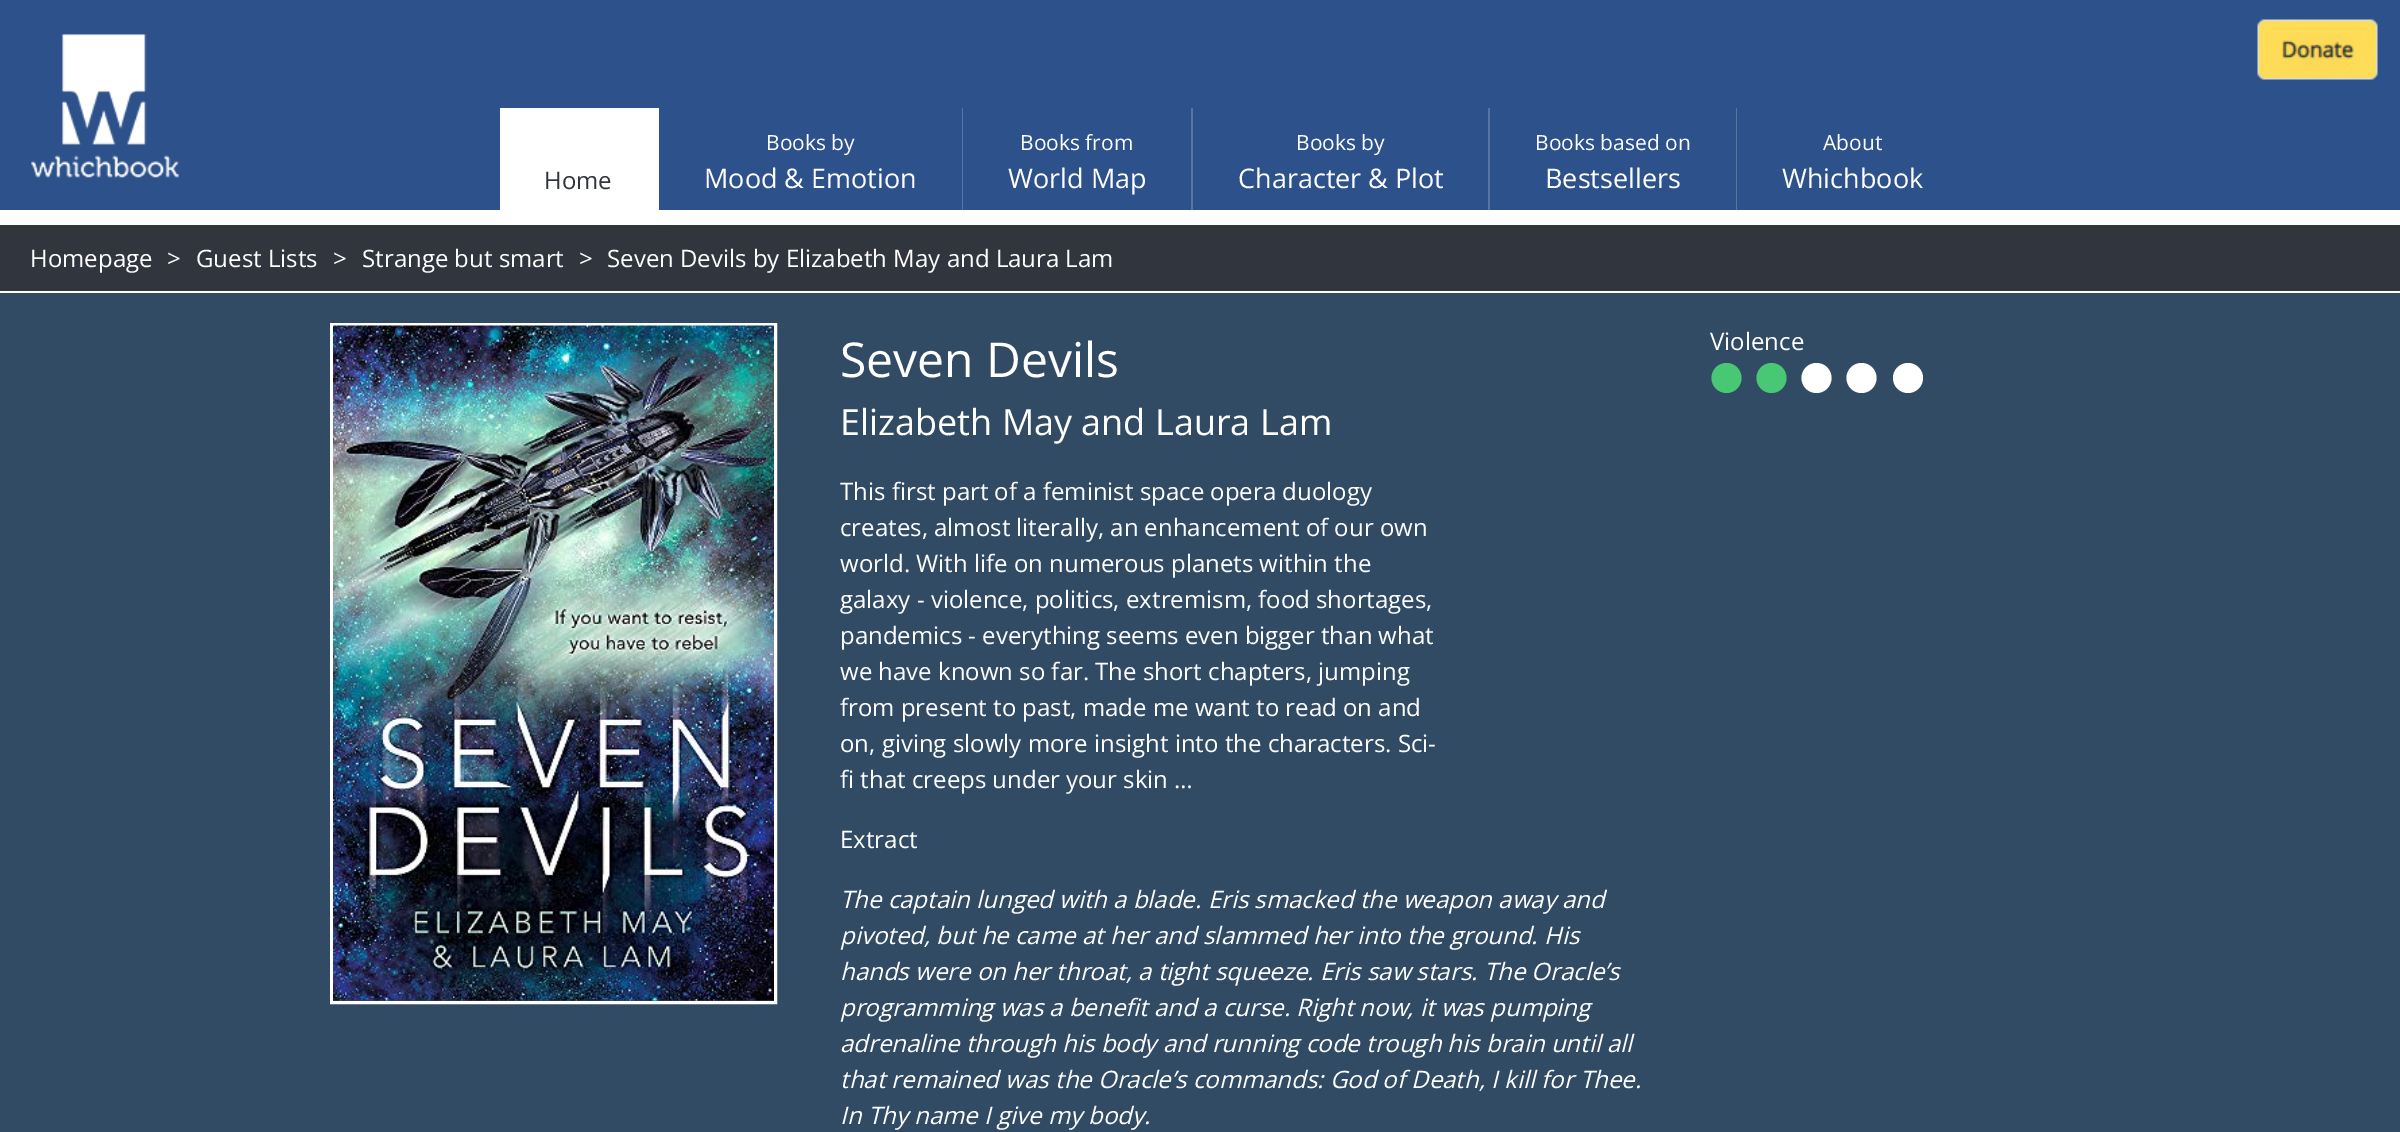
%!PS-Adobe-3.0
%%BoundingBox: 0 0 2400 1132
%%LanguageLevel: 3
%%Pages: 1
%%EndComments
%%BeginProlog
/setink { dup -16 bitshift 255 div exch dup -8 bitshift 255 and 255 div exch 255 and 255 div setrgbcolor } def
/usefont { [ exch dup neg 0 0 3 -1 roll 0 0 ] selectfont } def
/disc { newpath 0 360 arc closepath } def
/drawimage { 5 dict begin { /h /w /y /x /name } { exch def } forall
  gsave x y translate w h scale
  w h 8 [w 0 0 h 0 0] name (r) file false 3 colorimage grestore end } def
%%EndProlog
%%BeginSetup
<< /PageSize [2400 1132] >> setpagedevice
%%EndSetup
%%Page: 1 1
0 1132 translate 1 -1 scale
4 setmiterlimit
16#31353D setink
0 0 2400 1132 rectfill
16#2D518B setink
0 0 2400 210 rectfill
16#FFFFFF setink
0 210 2400 15 rectfill
(img1.raw) 31 34 148 144 drawimage
500 108 159 102 rectfill
/OpenSans-Regular 24 usefont
16#31353D setink
544 189 moveto (Home) show
16#5774A2 setink
962 108 1 102 rectfill
/OpenSans-Regular 21 usefont
16#FFFFFF setink
766 150 moveto (Books by) show
/OpenSans-Regular 27 usefont
704 188 moveto (Mood & Emotion) show
16#5774A2 setink
1191 108 2 102 rectfill
/OpenSans-Regular 21 usefont
16#FFFFFF setink
1020 150 moveto (Books from) show
/OpenSans-Regular 27 usefont
1008 188 moveto (World Map) show
16#5774A2 setink
1488 108 2 102 rectfill
/OpenSans-Regular 21 usefont
16#FFFFFF setink
1296 150 moveto (Books by) show
/OpenSans-Regular 27 usefont
1238 188 moveto (Character & Plot) show
16#5774A2 setink
1736 108 1 102 rectfill
/OpenSans-Regular 21 usefont
16#FFFFFF setink
1535 150 moveto (Books based on) show
/OpenSans-Regular 27 usefont
1545 188 moveto (Bestsellers) show
/OpenSans-Regular 21 usefont
1823 150 moveto (About) show
/OpenSans-Regular 27 usefont
1782 188 moveto (Whichbook) show
(img2.raw) 2257 19 121 61 drawimage
0 291 2400 2 rectfill
/OpenSans-Regular 24 usefont
[
    [(Homepage) 30 267]
    [(>) 167 267]
    [(Guest Lists) 196 267]
    [(>) 333 267]
    [(Strange but smart) 362 267]
    [(>) 579 267]
    [(Seven Devils by Elizabeth May and Laura Lam) 607 267]
] { aload pop moveto show } forall
16#324B64 setink
0 293 2400 839 rectfill
16#FFFFFF setink
3 setlinewidth
331.5 324.5 444 678 rectstroke
(img3.raw) 333 325 441 676 drawimage
/OpenSans-Regular 48 usefont
840 377 moveto (Seven Devils) show
/OpenSans-Regular 36 usefont
840 435 moveto (Elizabeth May and Laura Lam) show
/OpenSans-Regular 24 usefont
[
    [(This first part of a feminist space opera duology) 840 500]
    [(creates, almost literally, an enhancement of our own) 840 536]
    [(world. With life on numerous planets within the) 840 572]
    [(galaxy - violence, politics, extremism, food shortages,) 840 608]
    [(pandemics - everything seems even bigger than what) 840 644]
    [(we have known so far. The short chapters, jumping) 840 680]
    [(from present to past, made me want to read on and) 840 716]
    [(on, giving slowly more insight into the characters. Sci-) 840 752]
    [(fi that creeps under your skin …) 840 788]
    [(Extract) 840 848]
] { aload pop moveto show } forall
/OpenSans-Italic 24 usefont
[
    [(The captain lunged with a blade. Eris smacked the weapon away and) 840 908]
    [(pivoted, but he came at her and slammed her into the ground. His) 840 944]
    [(hands were on her throat, a tight squeeze. Eris saw stars. The Oracle’s) 840 980]
    [(programming was a benefit and a curse. Right now, it was pumping) 840 1016]
    [(adrenaline through his body and running code trough his brain until all) 840 1052]
    [(that remained was the Oracle’s commands: God of Death, I kill for Thee.) 840 1088]
    [(In Thy name I give my body.) 840 1124]
] { aload pop moveto show } forall
/OpenSans-Regular 24 usefont
1710 350 moveto (Violence) show
16#48C774 setink
1726.5 378 15 disc fill
1771.5 378 15 disc fill
16#FFFFFF setink
1816.5 378 15 disc fill
1861.5 378 15 disc fill
1908 378 15 disc fill
showpage
%%EOF
